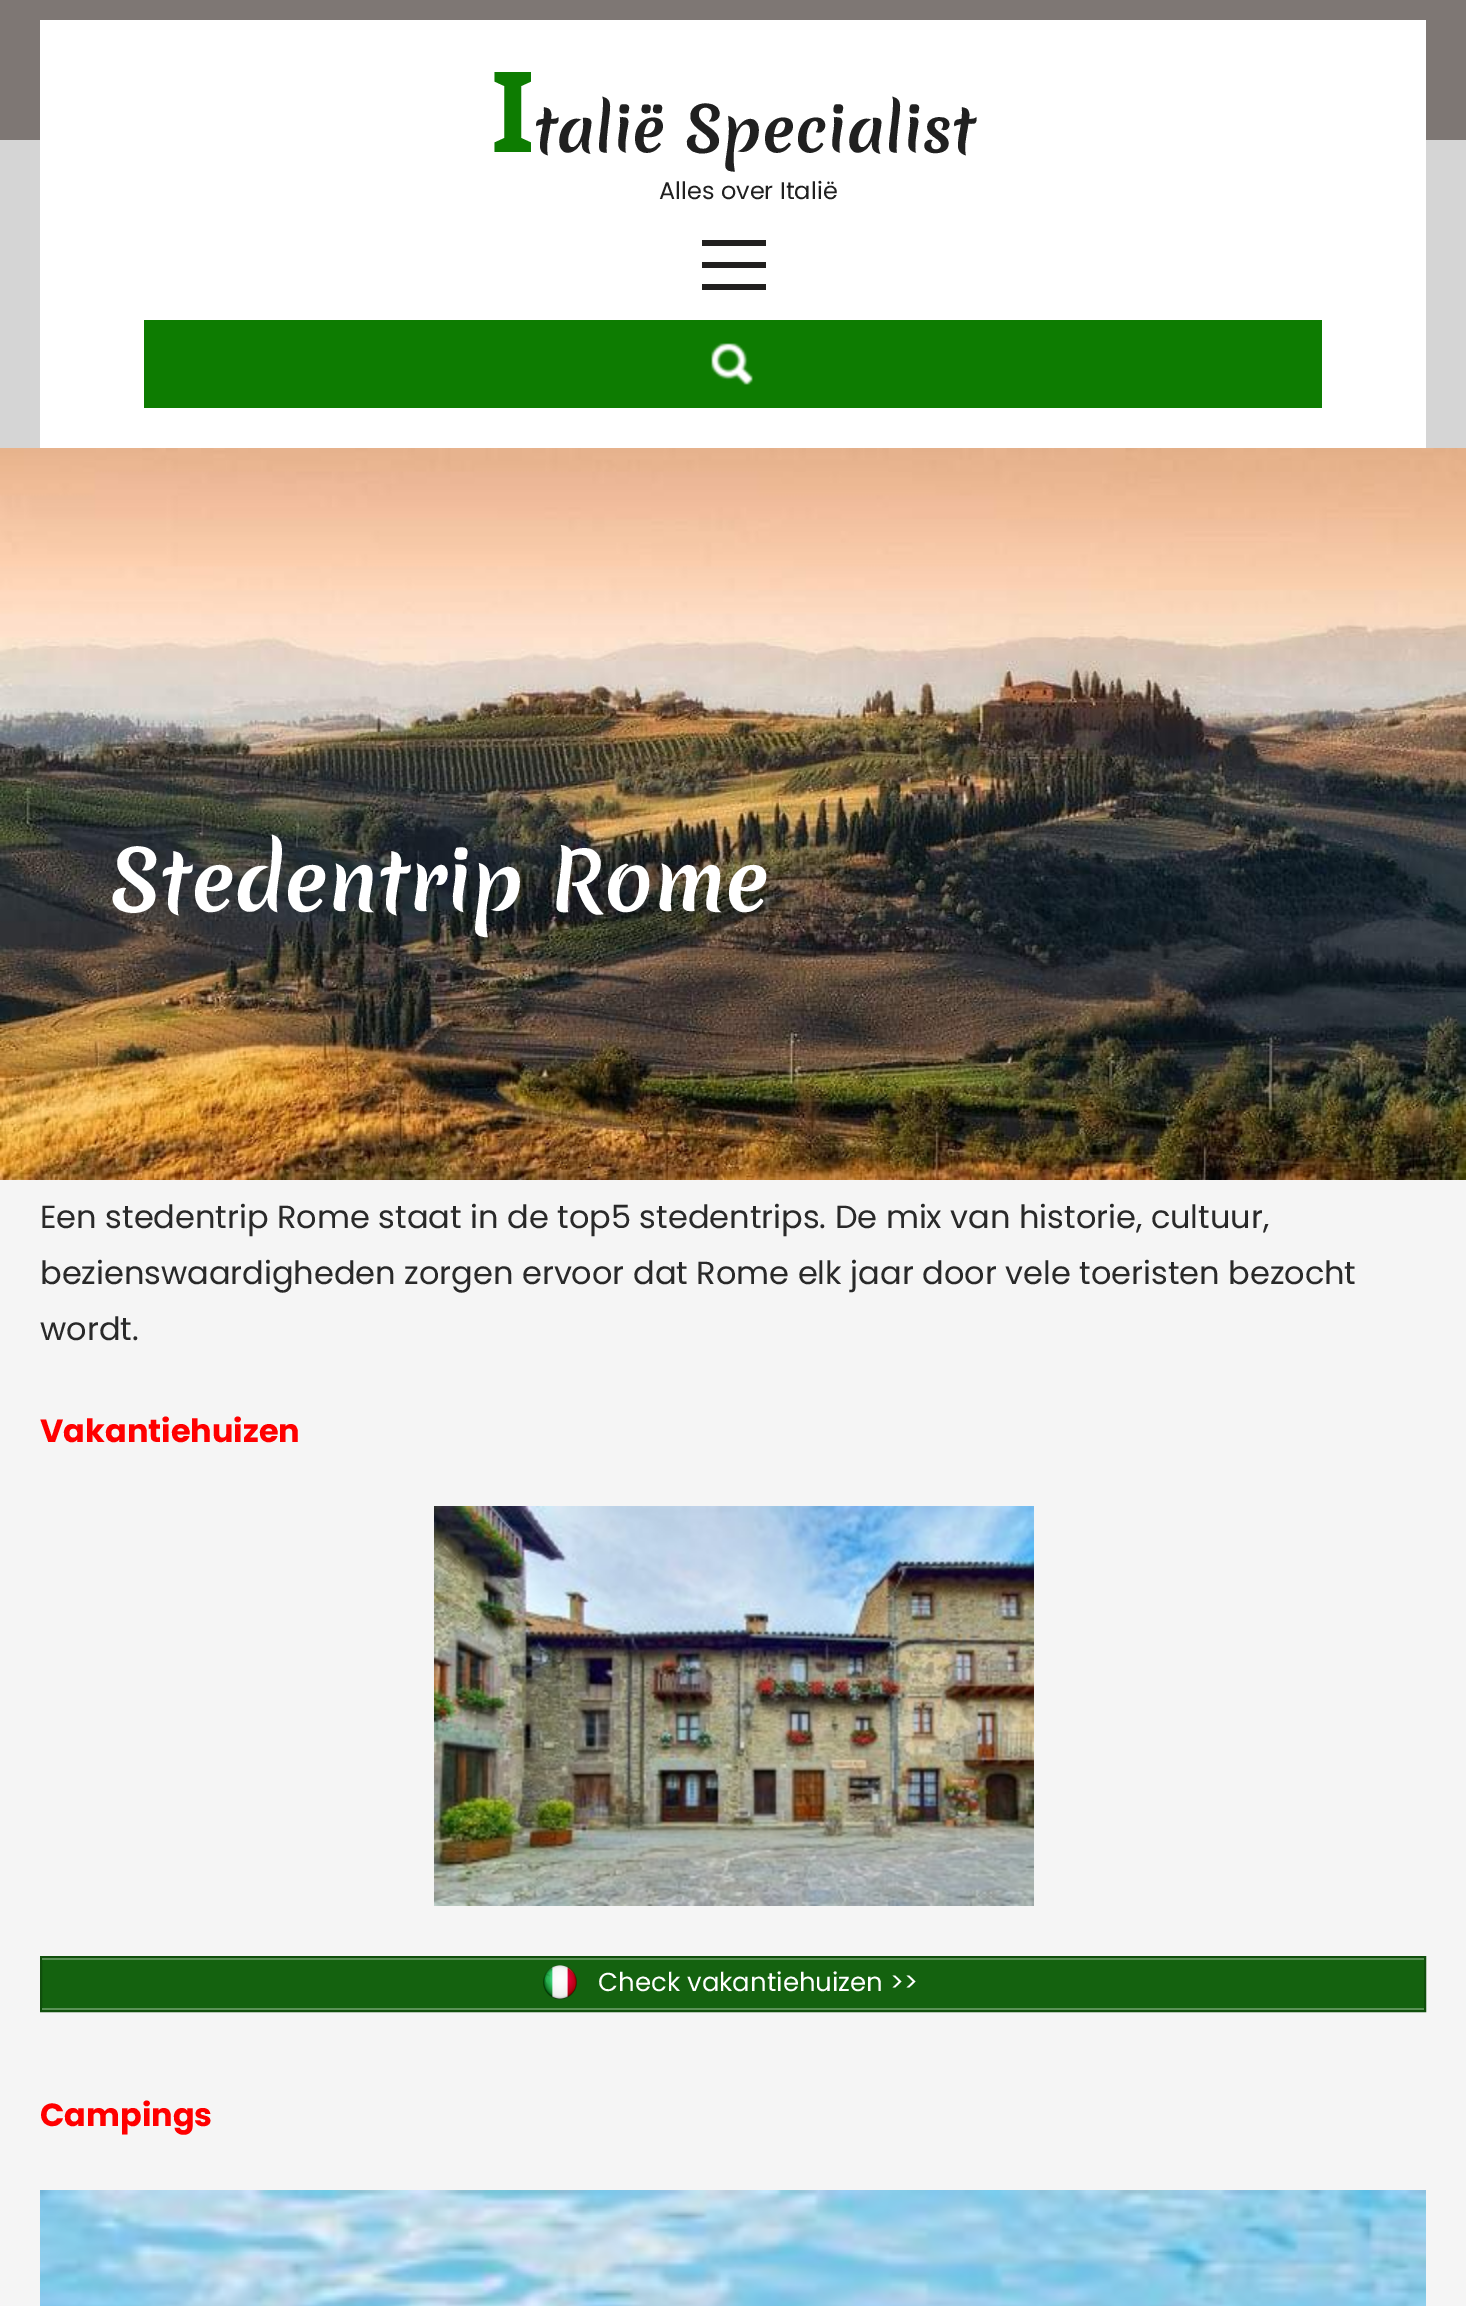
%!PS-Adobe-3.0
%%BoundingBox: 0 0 1466 2306
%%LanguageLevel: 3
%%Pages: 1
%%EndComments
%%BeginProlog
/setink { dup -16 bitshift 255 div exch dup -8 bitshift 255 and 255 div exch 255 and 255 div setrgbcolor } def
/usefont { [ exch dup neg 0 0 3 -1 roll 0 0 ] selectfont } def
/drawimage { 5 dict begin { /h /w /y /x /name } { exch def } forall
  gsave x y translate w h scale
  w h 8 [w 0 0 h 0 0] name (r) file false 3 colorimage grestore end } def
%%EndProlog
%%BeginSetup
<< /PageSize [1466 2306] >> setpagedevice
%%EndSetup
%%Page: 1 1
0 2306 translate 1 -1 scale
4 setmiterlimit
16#F5F5F5 setink
0 0 1466 2306 rectfill
[
    [0 0 1466 140 16#7E7774]
    [0 140 1466 308 16#D5D5D5]
    [40 20 1386 428 16#FFFFFF]
] { aload pop setink rectfill } forall
/NotoSans-Bold 112 usefont
16#0D7C01 setink
491 152 moveto (I) show
/Merienda-Bold 60 usefont
16#202020 setink
534 152 moveto (talië Specialist) show
/Poppins-Regular 24 usefont
659 199 moveto (Alles over Italië) show
[
    [702 240 64 6 16#21201F]
    [702 262 64 6 16#21201F]
    [702 284 64 6 16#21201F]
    [144 320 1178 88 16#0D7C01]
] { aload pop setink rectfill } forall
(img1.raw) 711 343 42 42 drawimage
(img2.raw) 0 448 1466 732 drawimage
/Merienda-Bold 80 usefont
16#FFFFFF setink
110 911 moveto (Stedentrip Rome) show
/Poppins-Regular 32 usefont
16#292929 setink
[
    [(Een stedentrip Rome staat in de top5 stedentrips. De mix van historie, cultuur,) 40 1228]
    [(bezienswaardigheden zorgen ervoor dat Rome elk jaar door vele toeristen bezocht) 40 1284]
    [(wordt.) 40 1340]
] { aload pop moveto show } forall
/Poppins-Bold 32 usefont
16#FF0000 setink
40 1442 moveto (Vakantiehuizen) show
(img3.raw) 434 1506 600 400 drawimage
16#14620F setink
42 1960 1382 48 rectfill
16#104F0C setink
2 setlinewidth
41 1957 1384 54 rectstroke
16#5B9257 setink
42 1958 1382 2 rectfill
42 2008 1382 2 rectfill
(img4.raw) 543 1965 34 35 drawimage
/Poppins-Regular 26 usefont
16#FFFFFF setink
598 1991 moveto (Check vakantiehuizen >>) show
/Poppins-Bold 32 usefont
16#FF0000 setink
40 2126 moveto (Campings) show
(img5.raw) 40 2190 1386 116 drawimage
showpage
%%EOF
